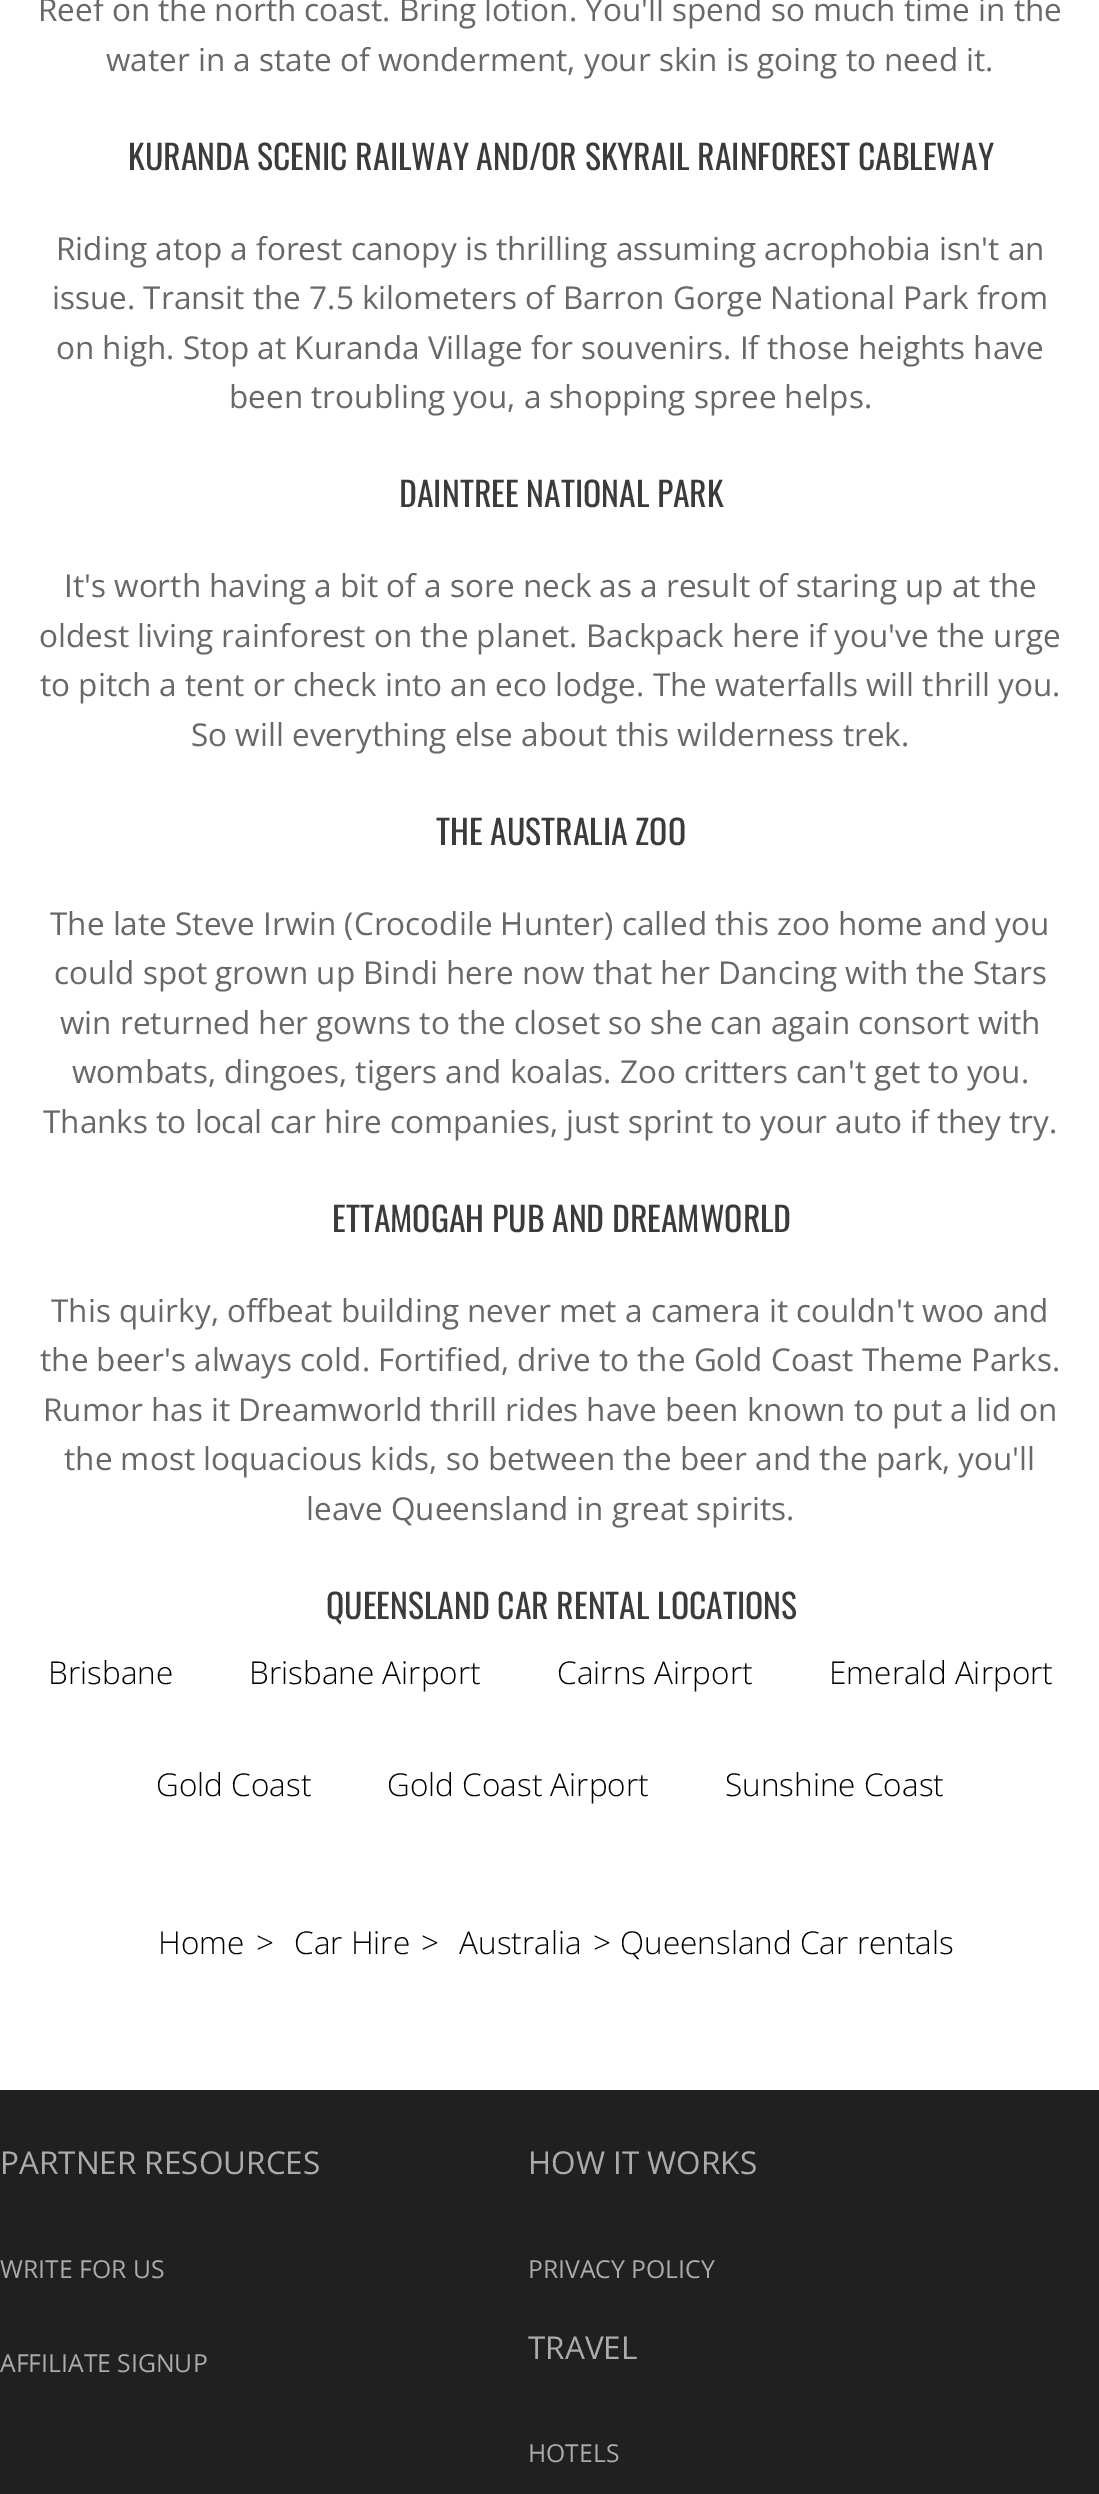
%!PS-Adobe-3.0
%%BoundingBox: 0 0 1099 2494
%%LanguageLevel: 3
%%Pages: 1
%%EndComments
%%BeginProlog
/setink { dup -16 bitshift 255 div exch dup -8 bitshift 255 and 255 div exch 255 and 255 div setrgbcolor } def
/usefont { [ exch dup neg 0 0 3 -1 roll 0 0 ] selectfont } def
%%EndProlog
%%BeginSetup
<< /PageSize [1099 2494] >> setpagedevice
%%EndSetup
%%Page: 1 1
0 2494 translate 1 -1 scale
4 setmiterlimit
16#FFFFFF setink
0 0 1099 2494 rectfill
/OpenSans-Regular 31.5 usefont
16#676968 setink
38 21 moveto (Reef on the north coast. Bring lotion. You'll spend so much time in the) show
106 71 moveto (water in a state of wonderment, your skin is going to need it.) show
/Oswald-Regular 33.75 usefont
16#3A3B3B setink
128 170 moveto (KURANDA SCENIC RAILWAY AND/OR SKYRAIL RAINFOREST CABLEWAY) show
/OpenSans-Regular 31.5 usefont
16#676968 setink
[
    [(Riding atop a forest canopy is thrilling assuming acrophobia isn't an) 56 260]
    [(issue. Transit the 7.5 kilometers of Barron Gorge National Park from) 52 309]
    [(on high. Stop at Kuranda Village for souvenirs. If those heights have) 56 359]
    [(been troubling you, a shopping spree helps.) 229 408]
] { aload pop moveto show } forall
/Oswald-Regular 33.75 usefont
16#3A3B3B setink
399 507 moveto (DAINTREE NATIONAL PARK) show
/OpenSans-Regular 31.5 usefont
16#676968 setink
[
    [(It's worth having a bit of a sore neck as a result of staring up at the) 64 597]
    [(oldest living rainforest on the planet. Backpack here if you've the urge) 39 647]
    [(to pitch a tent or check into an eco lodge. The waterfalls will thrill you.) 40 696]
    [(So will everything else about this wilderness trek.) 191 746]
] { aload pop moveto show } forall
/Oswald-Regular 33.75 usefont
16#3A3B3B setink
436 845 moveto (THE AUSTRALIA ZOO) show
/OpenSans-Regular 31.5 usefont
16#676968 setink
[
    [(The late Steve Irwin \(Crocodile Hunter\) called this zoo home and you) 50 935]
    [(could spot grown up Bindi here now that her Dancing with the Stars) 54 984]
    [(win returned her gowns to the closet so she can again consort with) 60 1034]
    [(wombats, dingoes, tigers and koalas. Zoo critters can't get to you.) 72 1083]
    [(Thanks to local car hire companies, just sprint to your auto if they try.) 43 1133]
] { aload pop moveto show } forall
/Oswald-Regular 33.75 usefont
16#3A3B3B setink
332 1232 moveto (ETTAMOGAH PUB AND DREAMWORLD) show
/OpenSans-Regular 31.5 usefont
16#676968 setink
[
    [(This quirky, offbeat building never met a camera it couldn't woo and) 51 1322]
    [(the beer's always cold. Fortified, drive to the Gold Coast Theme Parks.) 40 1371]
    [(Rumor has it Dreamworld thrill rides have been known to put a lid on) 43 1421]
    [(the most loquacious kids, so between the beer and the park, you'll) 64 1470]
    [(leave Queensland in great spirits.) 306 1520]
] { aload pop moveto show } forall
/Oswald-Regular 33.75 usefont
16#3A3B3B setink
326 1619 moveto (QUEENSLAND CAR RENTAL LOCATIONS) show
/OpenSans-Light 31.5 usefont
16#000000 setink
[
    [(Brisbane) 48 1684]
    [(Brisbane Airport) 249 1684]
    [(Cairns Airport) 557 1684]
    [(Emerald Airport) 829 1684]
    [(Gold Coast) 156 1796]
    [(Gold Coast Airport) 387 1796]
    [(Sunshine Coast) 725 1796]
    [(Home) 158 1954]
    [(>) 256 1954]
    [(Car Hire) 294 1954]
    [(>) 421 1954]
    [(Australia) 459 1954]
    [(>) 593 1954]
    [(Queensland Car rentals) 620 1954]
] { aload pop moveto show } forall
16#202020 setink
0 2090 1099 404 rectfill
/OpenSans-Regular 31.5 usefont
16#ABABAB setink
0 2174 moveto (PARTNER RESOURCES) show
/OpenSans-Regular 24.75 usefont
0 2278 moveto (WRITE FOR US) show
0 2372 moveto (AFFILIATE SIGNUP) show
/OpenSans-Regular 31.5 usefont
528 2174 moveto (HOW IT WORKS) show
/OpenSans-Regular 24.75 usefont
528 2278 moveto (PRIVACY POLICY) show
/OpenSans-Regular 31.5 usefont
528 2359 moveto (TRAVEL) show
/OpenSans-Regular 24.75 usefont
528 2462 moveto (HOTELS) show
showpage
%%EOF
